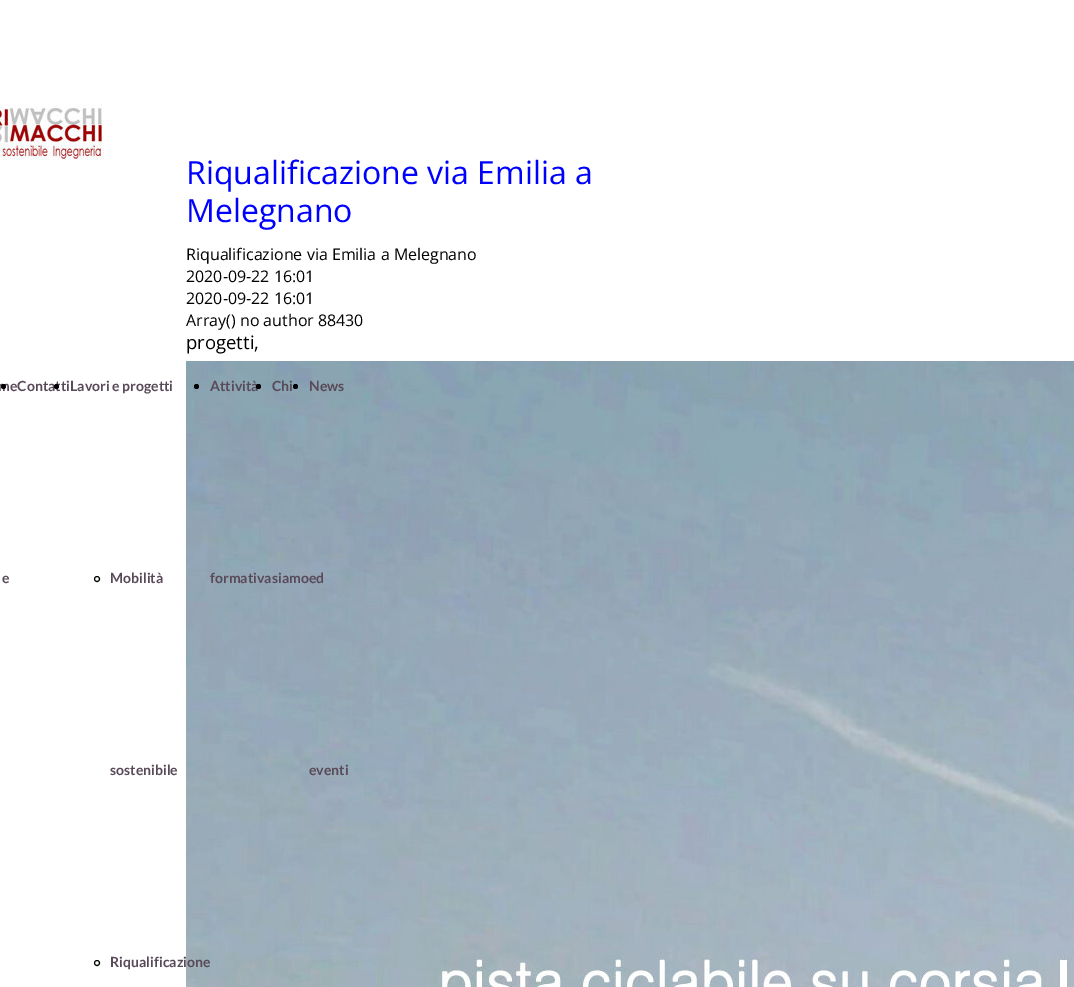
%!PS-Adobe-3.0
%%BoundingBox: 0 0 1074 987
%%LanguageLevel: 3
%%Pages: 1
%%EndComments
%%BeginProlog
/setink { dup -16 bitshift 255 div exch dup -8 bitshift 255 and 255 div exch 255 and 255 div setrgbcolor } def
/usefont { [ exch dup neg 0 0 3 -1 roll 0 0 ] selectfont } def
/disc { newpath 0 360 arc closepath } def
/drawimage { 5 dict begin { /h /w /y /x /name } { exch def } forall
  gsave x y translate w h scale
  w h 8 [w 0 0 h 0 0] name (r) file false 3 colorimage grestore end } def
%%EndProlog
%%BeginSetup
<< /PageSize [1074 987] >> setpagedevice
%%EndSetup
%%Page: 1 1
0 987 translate 1 -1 scale
4 setmiterlimit
16#FFFFFF setink
0 0 1074 987 rectfill
(img1.raw) 0 104 104 56 drawimage
/OpenSans-Regular 32 usefont
16#0000FF setink
186 184 moveto (Riqualificazione via Emilia a) show
186 222 moveto (Melegnano) show
/OpenSans-Regular 16 usefont
16#000000 setink
[
    [(Riqualificazione via Emilia a Melegnano) 186 260]
    [(2020-09-22 16:01) 186 282]
    [(2020-09-22 16:01) 186 304]
    [(Array\(\) no author 88430) 186 326]
] { aload pop moveto show } forall
/OpenSans-Regular 18.5 usefont
186 349 moveto (progetti,) show
(img2.raw) 186 361 888 626 drawimage
/Lato-Bold 14 usefont
16#584A58 setink
-2 391 moveto (meContattiLavori e progetti) show
2 583 moveto (e) show
16#000000 setink
196.5 386.5 2.5 disc fill
16#584A58 setink
210 391 moveto (Attività) show
210 583 moveto (formativasiamoed) show
16#000000 setink
3.5 386.5 2.5 disc fill
258.5 386.5 2.5 disc fill
16#584A58 setink
272 391 moveto (Chi) show
16#000000 setink
295.5 386.5 2.5 disc fill
16#584A58 setink
309 391 moveto (News) show
309 775 moveto (eventi) show
16#000000 setink
56.5 386.5 2.5 disc fill
97 579 2.5 disc stroke
16#584A58 setink
110 583 moveto (Mobilità) show
110 775 moveto (sostenibile) show
16#000000 setink
97 963 2.5 disc stroke
16#584A58 setink
110 967 moveto (Riqualificazione) show
showpage
%%EOF
